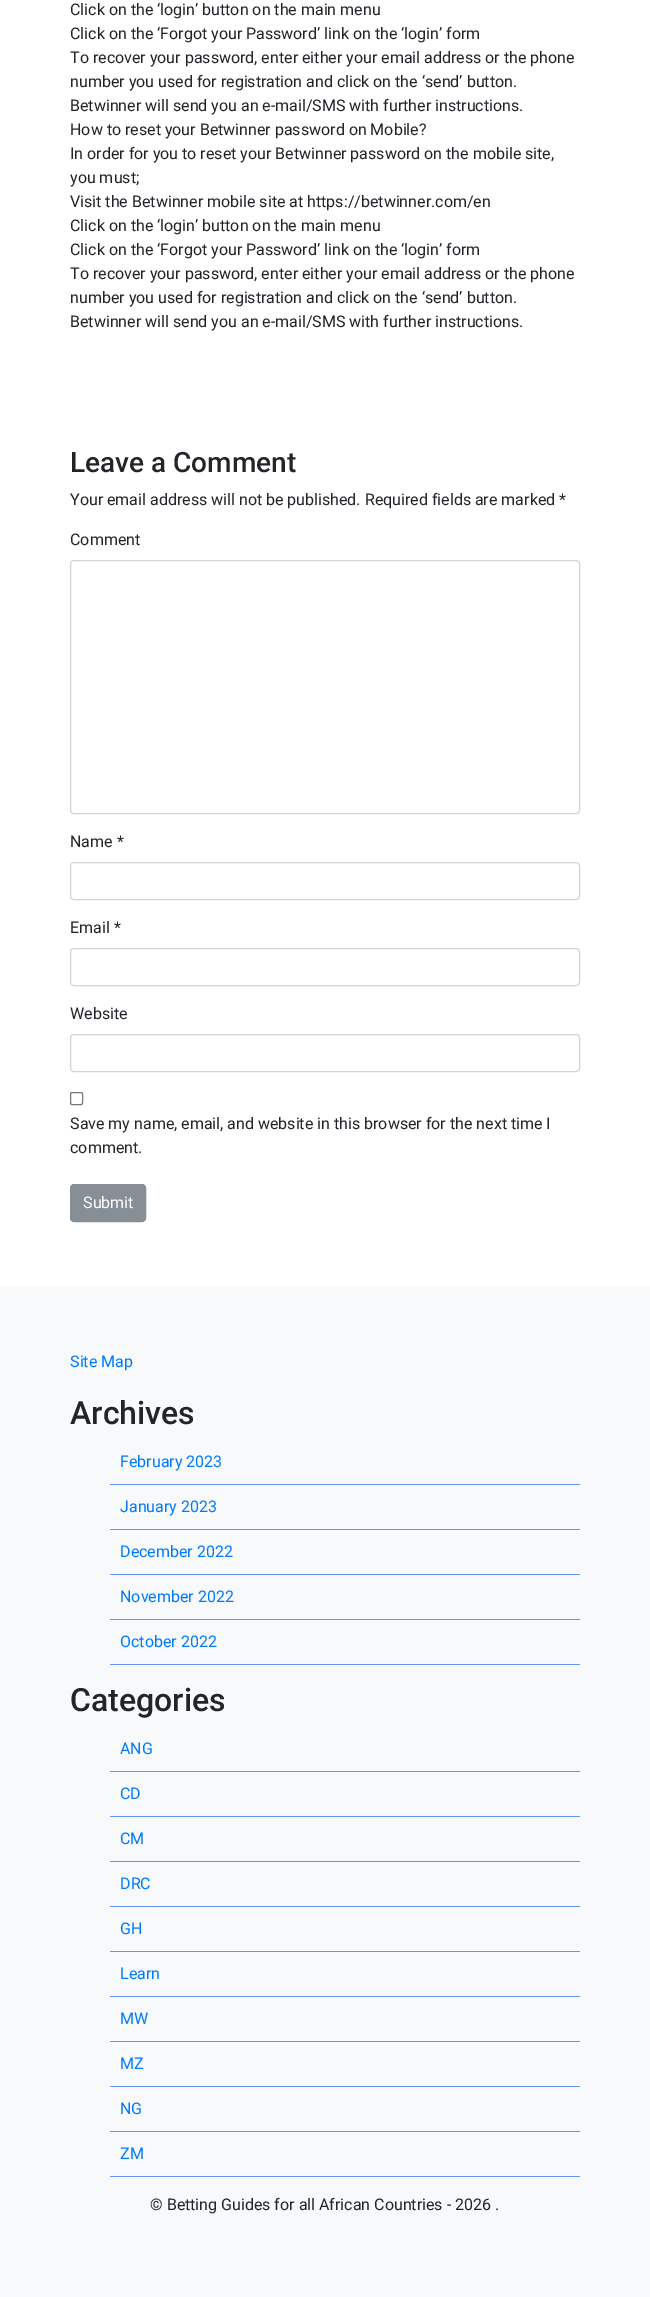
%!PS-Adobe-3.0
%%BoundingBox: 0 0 650 2297
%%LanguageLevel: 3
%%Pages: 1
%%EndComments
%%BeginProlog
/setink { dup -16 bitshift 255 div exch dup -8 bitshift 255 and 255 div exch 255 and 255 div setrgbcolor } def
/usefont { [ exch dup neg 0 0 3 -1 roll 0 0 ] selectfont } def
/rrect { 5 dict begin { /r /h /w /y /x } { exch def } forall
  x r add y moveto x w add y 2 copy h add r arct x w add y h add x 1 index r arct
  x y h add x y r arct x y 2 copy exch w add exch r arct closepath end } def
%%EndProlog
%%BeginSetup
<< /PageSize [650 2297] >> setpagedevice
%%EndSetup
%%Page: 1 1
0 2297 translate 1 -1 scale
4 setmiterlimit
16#FFFFFF setink
0 0 650 2297 rectfill
/Roboto-Regular 16 usefont
16#212529 setink
[
    [(Click on the ‘login’ button on the main menu) 70 15]
    [(Click on the ‘Forgot your Password’ link on the ‘login’ form) 70 39]
    [(To recover your password, enter either your email address or the phone) 70 63]
    [(number you used for registration and click on the ‘send’ button.) 70 87]
    [(Betwinner will send you an e-mail/SMS with further instructions.) 70 111]
    [(How to reset your Betwinner password on Mobile?) 70 135]
    [(In order for you to reset your Betwinner password on the mobile site,) 70 159]
    [(you must;) 70 183]
    [(Visit the Betwinner mobile site at https://betwinner.com/en) 70 207]
    [(Click on the ‘login’ button on the main menu) 70 231]
    [(Click on the ‘Forgot your Password’ link on the ‘login’ form) 70 255]
    [(To recover your password, enter either your email address or the phone) 70 279]
    [(number you used for registration and click on the ‘send’ button.) 70 303]
    [(Betwinner will send you an e-mail/SMS with further instructions.) 70 327]
] { aload pop moveto show } forall
/Roboto-Medium 28 usefont
70 472 moveto (Leave a Comment) show
/Roboto-Regular 16 usefont
70 505 moveto (Your email address will not be published. Required fields are marked *) show
70 545 moveto (Comment) show
16#CED4DA setink
70.5 560.5 509 253 3.5 rrect stroke
16#212529 setink
70 847 moveto (Name *) show
16#CED4DA setink
70.5 862.5 509 37 3.5 rrect stroke
16#212529 setink
70 933 moveto (Email *) show
16#CED4DA setink
70.5 948.5 509 37 3.5 rrect stroke
16#212529 setink
70 1019 moveto (Website) show
16#CED4DA setink
70.5 1034.5 509 37 3.5 rrect stroke
16#767676 setink
70.5 1092.5 12 12 1.5 rrect stroke
16#212529 setink
70 1129 moveto (Save my name, email, and website in this browser for the next time I) show
70 1153 moveto (comment.) show
16#868E96 setink
70.5 1184.5 75 37 3.5 rrect gsave fill grestore
stroke
16#FFFFFF setink
83 1208 moveto (Submit) show
16#F8F9FA setink
0 1286 650 1011 rectfill
16#007BFF setink
70 1367 moveto (Site Map) show
/Roboto-Medium 32 usefont
16#212529 setink
70 1424 moveto (Archives) show
16#6495ED setink
110 1484 470 1 rectfill
/Roboto-Regular 16 usefont
16#007BFF setink
120 1467 moveto (February 2023) show
16#6495ED setink
110 1529 470 1 rectfill
16#007BFF setink
120 1512 moveto (January 2023) show
16#6495ED setink
110 1574 470 1 rectfill
16#007BFF setink
120 1557 moveto (December 2022) show
16#6495ED setink
110 1619 470 1 rectfill
16#007BFF setink
120 1602 moveto (November 2022) show
16#6495ED setink
110 1664 470 1 rectfill
16#007BFF setink
120 1647 moveto (October 2022) show
/Roboto-Medium 32 usefont
16#212529 setink
70 1711 moveto (Categories) show
16#6495ED setink
110 1771 470 1 rectfill
/Roboto-Regular 16 usefont
16#007BFF setink
120 1754 moveto (ANG) show
16#6495ED setink
110 1816 470 1 rectfill
16#007BFF setink
120 1799 moveto (CD) show
16#6495ED setink
110 1861 470 1 rectfill
16#007BFF setink
120 1844 moveto (CM) show
16#6495ED setink
110 1906 470 1 rectfill
16#007BFF setink
120 1889 moveto (DRC) show
16#6495ED setink
110 1951 470 1 rectfill
16#007BFF setink
120 1934 moveto (GH) show
16#6495ED setink
110 1996 470 1 rectfill
16#007BFF setink
120 1979 moveto (Learn) show
16#6495ED setink
110 2041 470 1 rectfill
16#007BFF setink
120 2024 moveto (MW) show
16#6495ED setink
110 2086 470 1 rectfill
16#007BFF setink
120 2069 moveto (MZ) show
16#6495ED setink
110 2131 470 1 rectfill
16#007BFF setink
120 2114 moveto (NG) show
16#6495ED setink
110 2176 470 1 rectfill
16#007BFF setink
120 2159 moveto (ZM) show
16#212529 setink
150 2210 moveto (© Betting Guides for all African Countries - 2026 .) show
showpage
%%EOF
